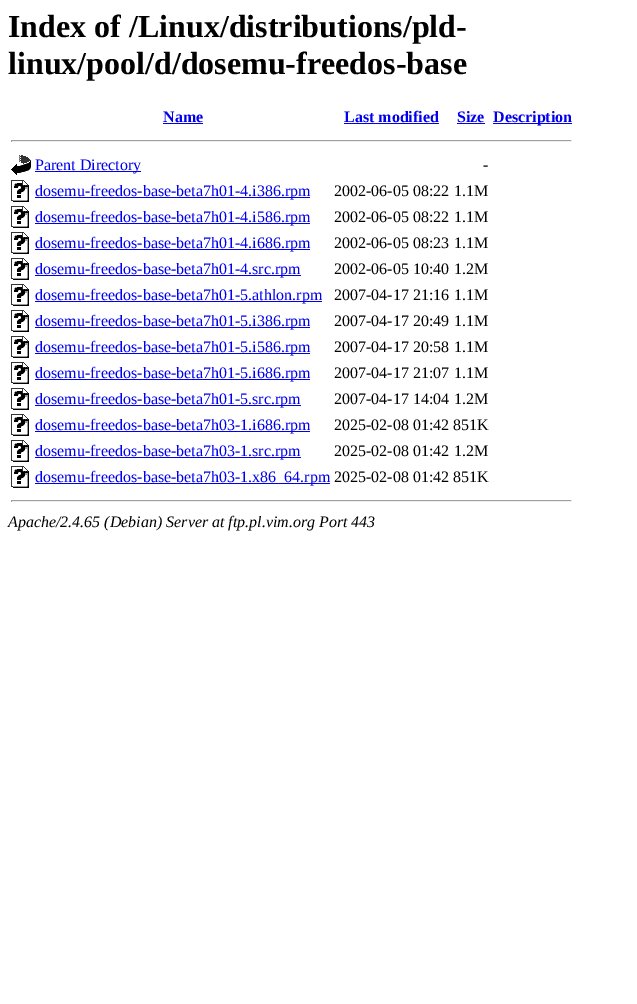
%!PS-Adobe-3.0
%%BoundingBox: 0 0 637 1004
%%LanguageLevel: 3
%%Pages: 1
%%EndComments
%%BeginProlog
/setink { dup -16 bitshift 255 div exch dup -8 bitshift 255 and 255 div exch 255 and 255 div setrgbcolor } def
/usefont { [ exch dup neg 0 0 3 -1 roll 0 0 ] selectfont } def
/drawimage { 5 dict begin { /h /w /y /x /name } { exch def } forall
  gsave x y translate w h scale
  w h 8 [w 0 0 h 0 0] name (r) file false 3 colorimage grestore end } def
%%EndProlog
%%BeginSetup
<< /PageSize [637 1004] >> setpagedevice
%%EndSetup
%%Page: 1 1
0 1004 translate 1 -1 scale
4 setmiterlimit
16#FFFFFF setink
0 0 637 1004 rectfill
/LiberationSerif-Bold 32 usefont
16#000000 setink
8 37 moveto (Index of /Linux/distributions/pld-) show
8 74 moveto (linux/pool/d/dosemu-freedos-base) show
/LiberationSerif-Bold 16 usefont
16#0000EE setink
163 122 moveto (Name) show
163 123 40 1 rectfill
344 122 moveto (Last modified) show
344 123 95 1 rectfill
457 122 moveto (Size) show
457 123 28 1 rectfill
493 123 79 1 rectfill
493 122 moveto (Description) show
[
    [11 140 561 1 16#9F9F9F]
    [571 140 1 2 16#EEEEEE]
    [11 141 561 1 16#EEEEEE]
    [11 140 1 2 16#9F9F9F]
] { aload pop setink rectfill } forall
(img1.raw) 11 155 20 20 drawimage
16#0000EE setink
35 171 106 1 rectfill
/LiberationSerif-Regular 16 usefont
35 170 moveto (Parent Directory) show
16#000000 setink
483 170 moveto (-) show
(img2.raw) 11 180 18 22 drawimage
16#0000EE setink
35 197 275 1 rectfill
35 196 moveto (dosemu-freedos-base-beta7h01-4.i386.rpm) show
16#000000 setink
334 196 moveto (2002-06-05 08:22) show
454 196 moveto (1.1M) show
(img2.raw) 11 206 18 22 drawimage
16#0000EE setink
35 223 275 1 rectfill
35 222 moveto (dosemu-freedos-base-beta7h01-4.i586.rpm) show
16#000000 setink
334 222 moveto (2002-06-05 08:22) show
454 222 moveto (1.1M) show
(img2.raw) 11 232 18 22 drawimage
16#0000EE setink
35 249 275 1 rectfill
35 248 moveto (dosemu-freedos-base-beta7h01-4.i686.rpm) show
16#000000 setink
334 248 moveto (2002-06-05 08:23) show
454 248 moveto (1.1M) show
(img2.raw) 11 258 18 22 drawimage
16#0000EE setink
35 275 266 1 rectfill
35 274 moveto (dosemu-freedos-base-beta7h01-4.src.rpm) show
16#000000 setink
334 274 moveto (2002-06-05 10:40) show
454 274 moveto (1.2M) show
(img2.raw) 11 284 18 22 drawimage
16#0000EE setink
35 301 287 1 rectfill
35 300 moveto (dosemu-freedos-base-beta7h01-5.athlon.rpm) show
16#000000 setink
334 300 moveto (2007-04-17 21:16) show
454 300 moveto (1.1M) show
(img2.raw) 11 310 18 22 drawimage
16#0000EE setink
35 327 275 1 rectfill
35 326 moveto (dosemu-freedos-base-beta7h01-5.i386.rpm) show
16#000000 setink
334 326 moveto (2007-04-17 20:49) show
454 326 moveto (1.1M) show
(img2.raw) 11 336 18 22 drawimage
16#0000EE setink
35 353 275 1 rectfill
35 352 moveto (dosemu-freedos-base-beta7h01-5.i586.rpm) show
16#000000 setink
334 352 moveto (2007-04-17 20:58) show
454 352 moveto (1.1M) show
(img2.raw) 11 362 18 22 drawimage
16#0000EE setink
35 379 275 1 rectfill
35 378 moveto (dosemu-freedos-base-beta7h01-5.i686.rpm) show
16#000000 setink
334 378 moveto (2007-04-17 21:07) show
454 378 moveto (1.1M) show
(img2.raw) 11 388 18 22 drawimage
16#0000EE setink
35 405 266 1 rectfill
35 404 moveto (dosemu-freedos-base-beta7h01-5.src.rpm) show
16#000000 setink
334 404 moveto (2007-04-17 14:04) show
454 404 moveto (1.2M) show
(img2.raw) 11 414 18 22 drawimage
16#0000EE setink
35 431 275 1 rectfill
35 430 moveto (dosemu-freedos-base-beta7h03-1.i686.rpm) show
16#000000 setink
334 430 moveto (2025-02-08 01:42 851K) show
(img2.raw) 11 440 18 22 drawimage
16#0000EE setink
35 457 266 1 rectfill
35 456 moveto (dosemu-freedos-base-beta7h03-1.src.rpm) show
16#000000 setink
334 456 moveto (2025-02-08 01:42) show
454 456 moveto (1.2M) show
(img2.raw) 11 466 18 22 drawimage
16#0000EE setink
35 483 295 1 rectfill
35 482 moveto (dosemu-freedos-base-beta7h03-1.x86_64.rpm) show
16#000000 setink
334 482 moveto (2025-02-08 01:42 851K) show
[
    [11 500 561 1 16#9F9F9F]
    [571 500 1 2 16#EEEEEE]
    [11 501 561 1 16#EEEEEE]
    [11 500 1 2 16#9F9F9F]
] { aload pop setink rectfill } forall
/LiberationSerif-Italic 16 usefont
16#000000 setink
8 527 moveto (Apache/2.4.65 \(Debian\) Server at ftp.pl.vim.org Port 443) show
showpage
%%EOF
